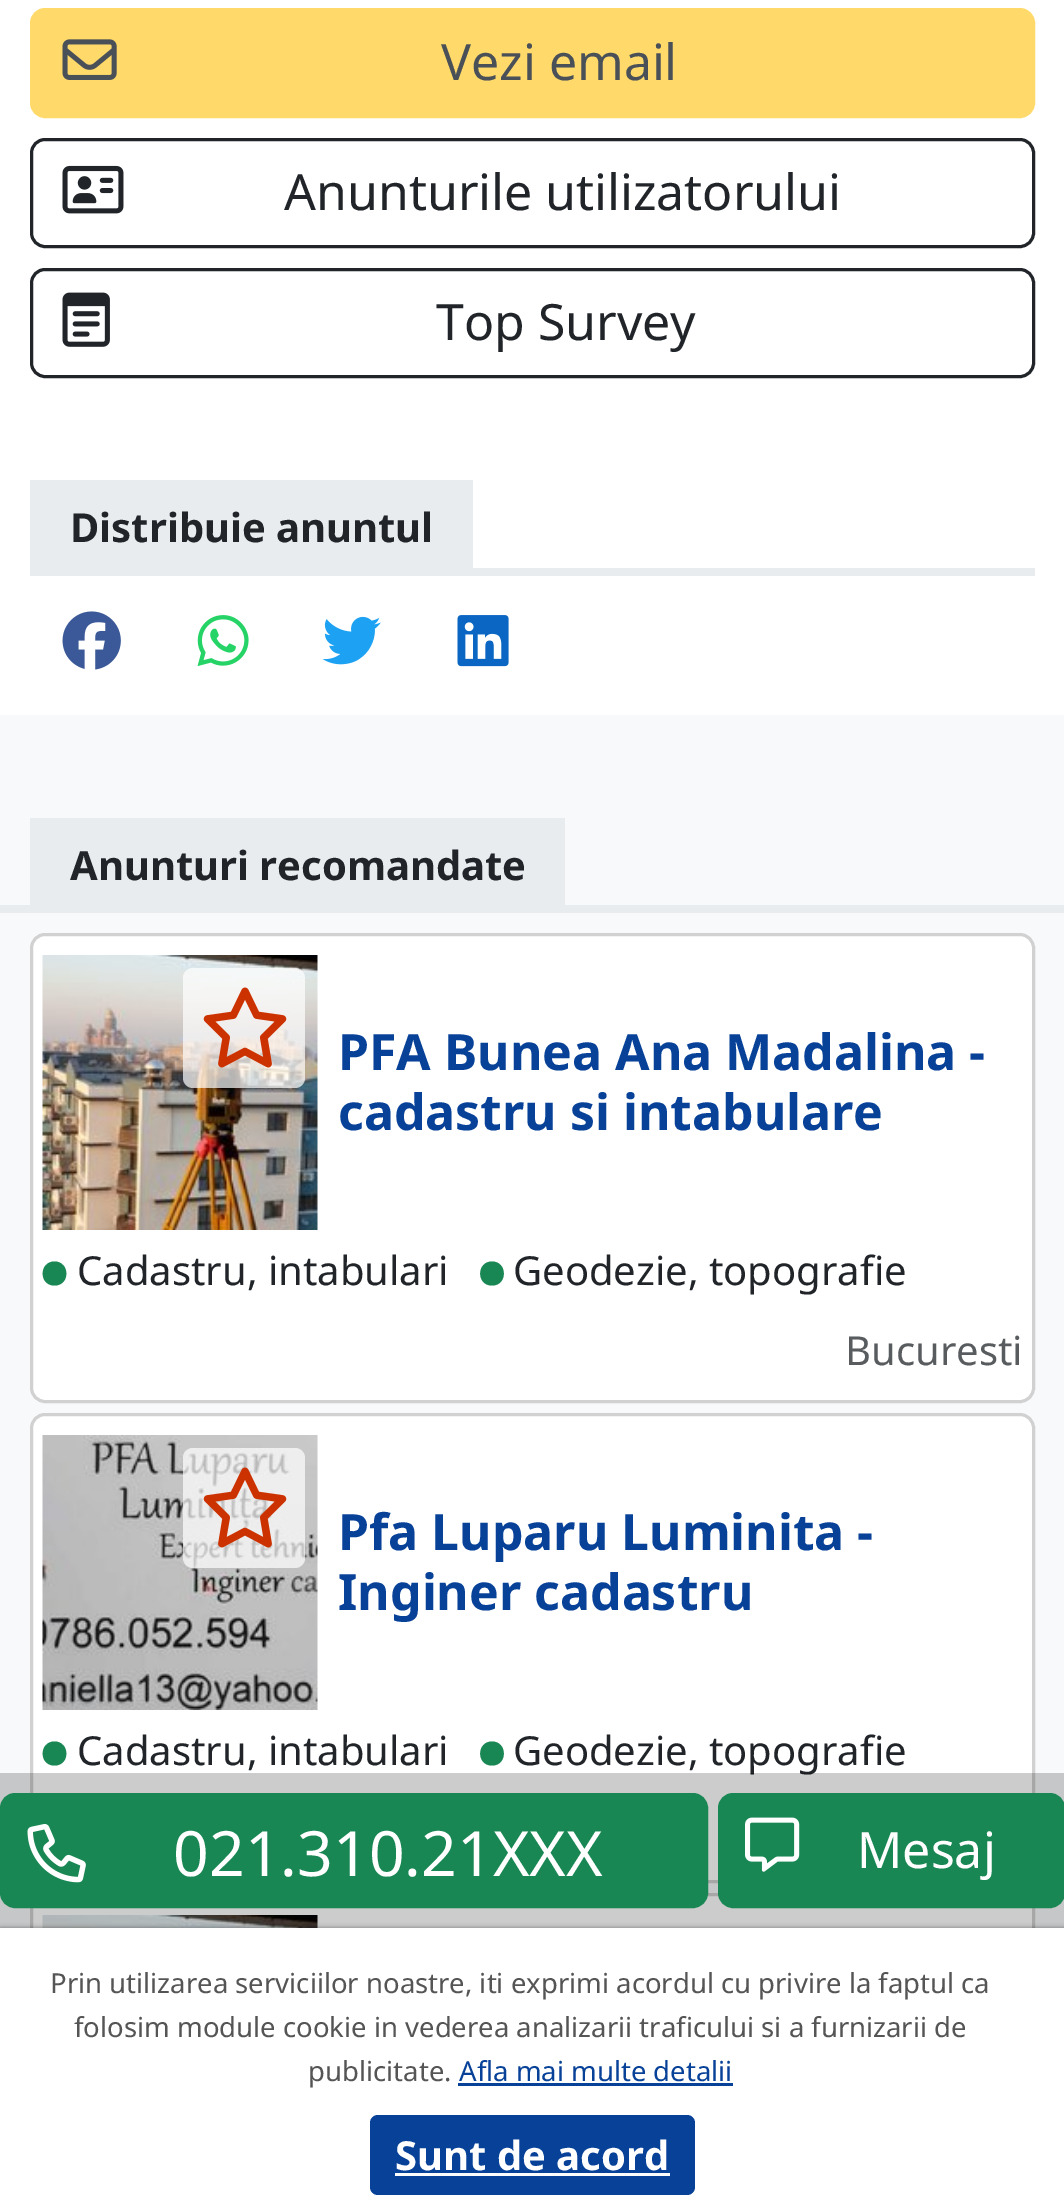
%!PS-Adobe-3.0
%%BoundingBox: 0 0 1064 2208
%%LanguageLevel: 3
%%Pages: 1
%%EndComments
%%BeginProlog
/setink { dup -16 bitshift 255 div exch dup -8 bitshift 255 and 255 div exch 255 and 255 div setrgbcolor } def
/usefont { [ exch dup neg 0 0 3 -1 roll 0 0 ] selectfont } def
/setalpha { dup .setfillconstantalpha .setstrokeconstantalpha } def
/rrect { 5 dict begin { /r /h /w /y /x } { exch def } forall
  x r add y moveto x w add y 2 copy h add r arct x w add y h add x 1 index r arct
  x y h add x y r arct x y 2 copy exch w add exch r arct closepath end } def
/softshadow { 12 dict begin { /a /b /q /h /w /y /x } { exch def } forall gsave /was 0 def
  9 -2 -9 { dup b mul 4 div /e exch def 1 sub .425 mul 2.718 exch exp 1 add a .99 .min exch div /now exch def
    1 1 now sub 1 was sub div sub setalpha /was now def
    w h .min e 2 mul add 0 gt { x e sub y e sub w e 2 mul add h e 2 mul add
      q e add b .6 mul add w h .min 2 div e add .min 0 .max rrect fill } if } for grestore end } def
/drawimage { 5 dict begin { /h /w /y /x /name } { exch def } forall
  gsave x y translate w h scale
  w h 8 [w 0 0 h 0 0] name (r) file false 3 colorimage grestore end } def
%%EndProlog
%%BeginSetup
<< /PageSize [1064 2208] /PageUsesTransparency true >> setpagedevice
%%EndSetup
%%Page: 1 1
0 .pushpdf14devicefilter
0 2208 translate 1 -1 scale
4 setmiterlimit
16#F8F9FA setink
0 0 1064 2208 rectfill
16#FFFFFF setink
0 0 1064 715 rectfill
16#FFDA6A setink
31.5 9.5 1002 107 13.5 rrect gsave fill grestore
3 setlinewidth
stroke
(img1.raw) 62 39 55 41 drawimage
/NotoSans-Regular 50 usefont
16#495057 setink
441 80 moveto (Vezi email) show
16#212529 setink
31.5 139.5 1002 107 13.5 rrect stroke
(img2.raw) 62 165 62 49 drawimage
284 210 moveto (Anunturile utilizatorului) show
31.5 269.5 1002 107 13.5 rrect stroke
(img3.raw) 62 292 48 55 drawimage
436 340 moveto (Top Survey) show
16#E9ECEF setink
30 568 1005 8 rectfill
30 480 443 88 rectfill
/NotoSans-Bold 40 usefont
16#212529 setink
70 542 moveto (Distribuie anuntul) show
(img4.raw) 62 611 59 59 drawimage
(img5.raw) 197 615 52 52 drawimage
(img6.raw) 322 616 59 49 drawimage
(img7.raw) 457 615 52 52 drawimage
16#FFFFFF setink
30 1413 1005 470 15 rrect fill
0.18 setalpha
16#000000 setink
31.5 1414.5 1002 467 13.5 rrect stroke
/NotoSans-Regular 40 usefont
1 setalpha
16#212529 setink
513 1765 moveto (Geodezie, topografie) show
16#FFFFFF setink
30 1893 1005 35 rectfill
0.18 setalpha
16#000000 setink
31.5 1894.5 1002 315 rectstroke
1 setalpha
(img14.raw) 42 1915 276 13 drawimage
0.2 setalpha
0 1773 1064 155 rectfill
1 setalpha
16#198754 setink
1.5 1794.5 705 112 13.5 rrect gsave fill grestore
stroke
(img8.raw) 27 1824 59 59 drawimage
/NotoSans-Regular 62.5 usefont
16#FFFFFF setink
173 1876 moveto (021.310.21XXX) show
16#198754 setink
719.5 1794.5 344 112 13.5 rrect gsave fill grestore
stroke
(img9.raw) 745 1817 55 55 drawimage
/NotoSans-Regular 50 usefont
16#FFFFFF setink
857 1868 moveto (Mesaj) show
16#000000 setink
0 1928 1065 272 0 2.5 0.4 softshadow
16#FFFFFF setink
0 1928 1064 280 rectfill
/NotoSans-Regular 27.5 usefont
16#555555 setink
[
    [(Prin utilizarea serviciilor noastre, iti exprimi acordul cu privire la faptul ca) 50 1993]
    [(folosim module cookie in vederea analizarii traficului si a furnizarii de) 74 2037]
    [(publicitate.) 308 2081]
] { aload pop moveto show } forall
16#084298 setink
459 2081 moveto (Afla mai multe detalii) show
458 2083 275 3 rectfill
370 2115 325 80 8 rrect fill
/NotoSans-Bold 40 usefont
16#FFFFFF setink
395 2170 moveto (Sunt de acord) show
[
    [395 2173 275 3 16#FFFFFF]
    [0 905 1064 8 16#E9ECEF]
    [30 818 535 87 16#E9ECEF]
] { aload pop setink rectfill } forall
16#212529 setink
70 880 moveto (Anunturi recomandate) show
16#FFFFFF setink
30 933 1005 470 15 rrect fill
0.18 setalpha
16#000000 setink
31.5 934.5 1002 467 13.5 rrect stroke
1 setalpha
(img10.raw) 42 955 276 275 drawimage
0.7 setalpha
16#FFFFFF setink
183 968 122 120 10 rrect fill
1 setalpha
(img11.raw) 203 987 84 81 drawimage
/NotoSans-Bold 50 usefont
16#084298 setink
338 1070 moveto (PFA Bunea Ana Madalina -) show
338 1130 moveto (cadastru si intabulare) show
16#198754 setink
54.5 1285.5 moveto 70.5 1285.5 70 1261.5 54.5 1261.5 curveto 39 1261.5 38.5 1285.5 54.5 1285.5 curveto closepath fill
/NotoSans-Regular 40 usefont
16#212529 setink
77 1285 moveto (Cadastru, intabulari) show
16#198754 setink
492 1285.5 moveto 508 1285.5 507.5 1261.5 492 1261.5 curveto 476.5 1261.5 476 1285.5 492 1285.5 curveto closepath fill
16#212529 setink
513 1285 moveto (Geodezie, topografie) show
16#595C5F setink
845 1365 moveto (Bucuresti) show
(img12.raw) 42 1435 276 275 drawimage
0.7 setalpha
16#FFFFFF setink
183 1448 122 120 10 rrect fill
1 setalpha
(img13.raw) 203 1467 84 81 drawimage
/NotoSans-Bold 50 usefont
16#084298 setink
338 1550 moveto (Pfa Luparu Luminita -) show
338 1610 moveto (Inginer cadastru) show
16#198754 setink
54.5 1765.5 moveto 70.5 1765.5 70 1741.5 54.5 1741.5 curveto 39 1741.5 38.5 1765.5 54.5 1765.5 curveto closepath fill
/NotoSans-Regular 40 usefont
16#212529 setink
77 1765 moveto (Cadastru, intabulari) show
16#198754 setink
492 1765.5 moveto 508 1765.5 507.5 1741.5 492 1741.5 curveto 476.5 1741.5 476 1765.5 492 1765.5 curveto closepath fill
.poppdf14devicefilter showpage
%%EOF
